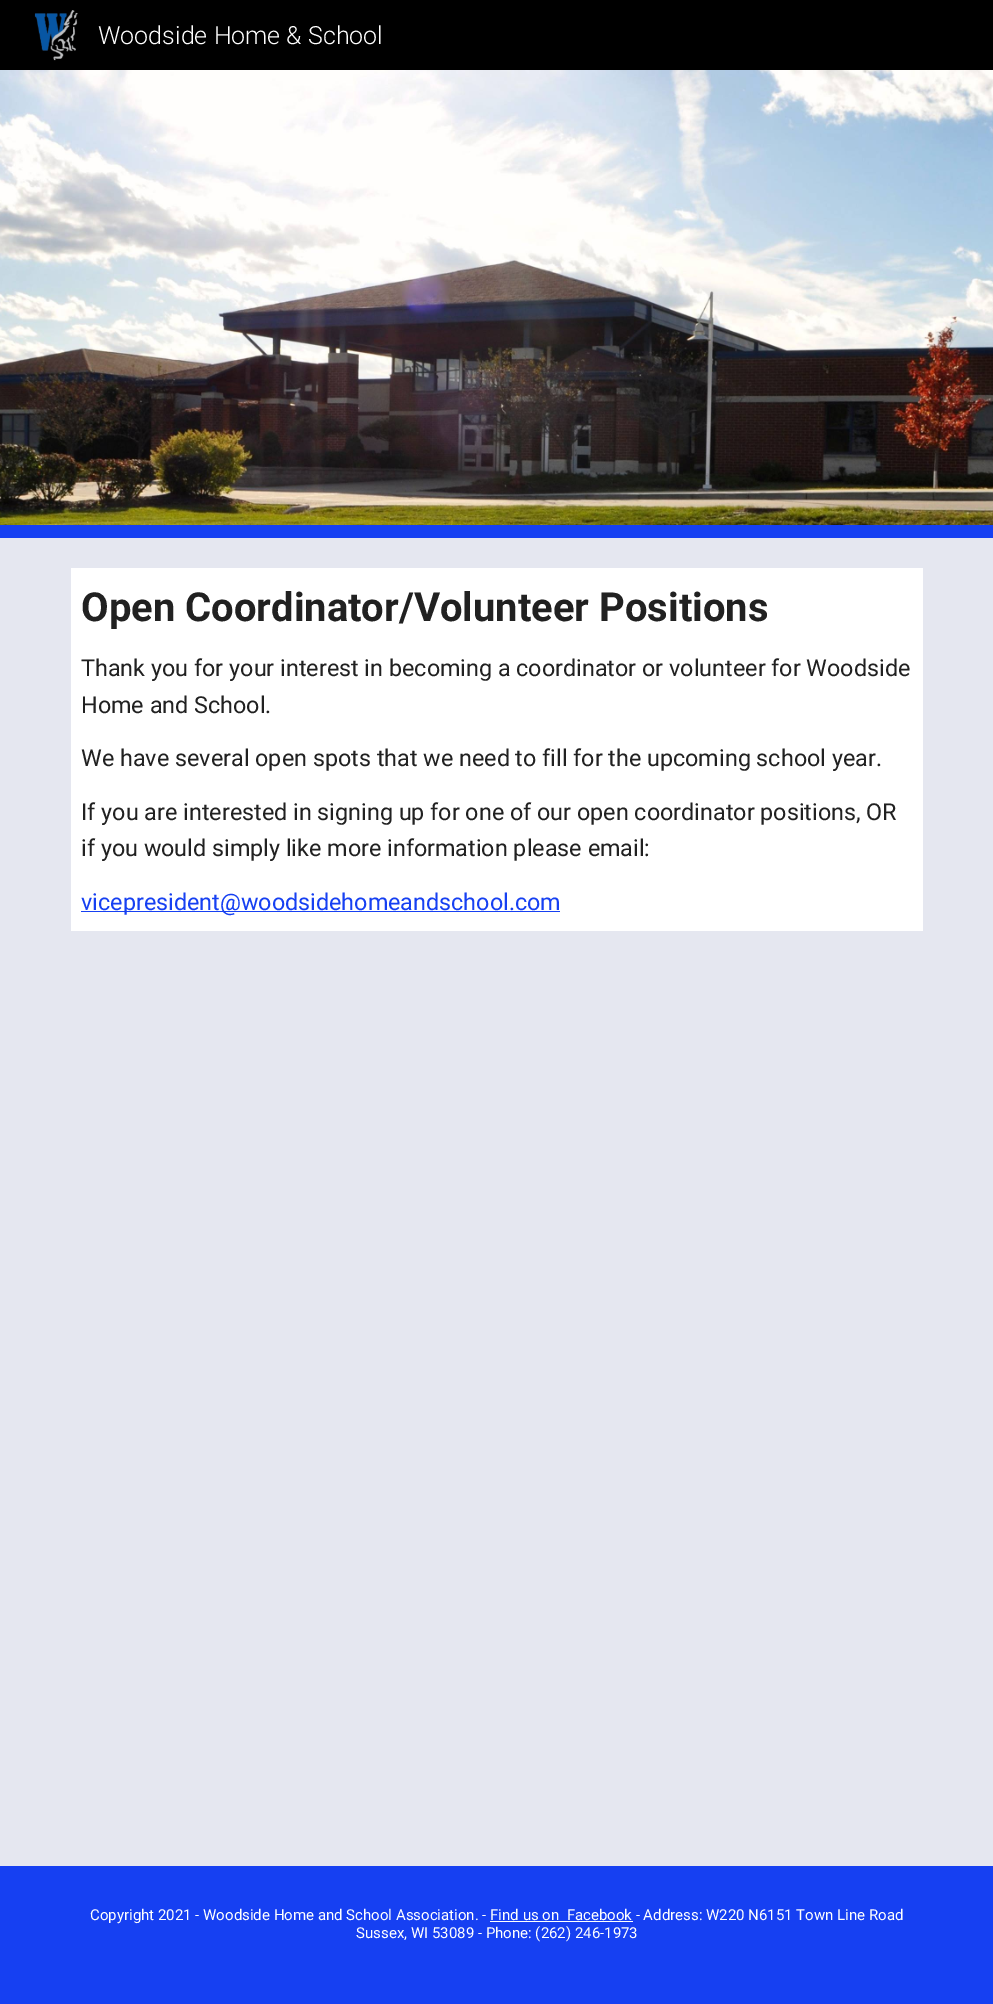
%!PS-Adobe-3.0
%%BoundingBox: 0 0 993 2004
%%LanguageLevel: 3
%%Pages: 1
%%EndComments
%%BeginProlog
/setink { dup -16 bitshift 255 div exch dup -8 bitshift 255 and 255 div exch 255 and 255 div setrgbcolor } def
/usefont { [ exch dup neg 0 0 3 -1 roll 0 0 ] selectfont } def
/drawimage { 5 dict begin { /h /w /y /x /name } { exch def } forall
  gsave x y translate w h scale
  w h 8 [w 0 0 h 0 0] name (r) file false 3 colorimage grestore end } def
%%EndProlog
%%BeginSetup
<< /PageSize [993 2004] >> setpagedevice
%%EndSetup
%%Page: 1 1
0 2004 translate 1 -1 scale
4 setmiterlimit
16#E5E7F0 setink
0 0 993 2004 rectfill
16#000000 setink
0 0 993 70 rectfill
(img1.raw) 34 10 44 51 drawimage
/Roboto-Light 25 usefont
16#FFFFFF setink
98 44 moveto (Woodside Home & School) show
(img2.raw) 0 70 993 455 drawimage
16#1640F2 setink
0 525 993 13 rectfill
16#FFFFFF setink
71 568 852 363 rectfill
/Roboto-Bold 40 usefont
16#212121 setink
81 621 moveto (Open Coordinator/Volunteer Positions) show
/Roboto-Regular 23.35 usefont
[
    [(Thank you for your interest in becoming a coordinator or volunteer for Woodside) 81 676]
    [(Home and School.) 81 713]
    [(We have several open spots that we need to fill for the upcoming school year.) 81 766]
    [(If you are interested in signing up for one of our open coordinator positions, OR) 81 820]
    [(if you would simply like more information please email:) 81 856]
] { aload pop moveto show } forall
16#1640F2 setink
81 911 479 1 rectfill
81 910 moveto (vicepresident@woodsidehomeandschool.com) show
0 1866 993 138 rectfill
/Roboto-Regular 15 usefont
16#FFFFFF setink
90 1920 moveto (Copyright 2021 - Woodside Home and School Association. - Find us on  Facebook - Address: W220 N6151 Town Line Road) show
490 1921 143 1 rectfill
356 1938 moveto (Sussex, WI 53089 - Phone: \(262\) 246-1973) show
showpage
%%EOF
